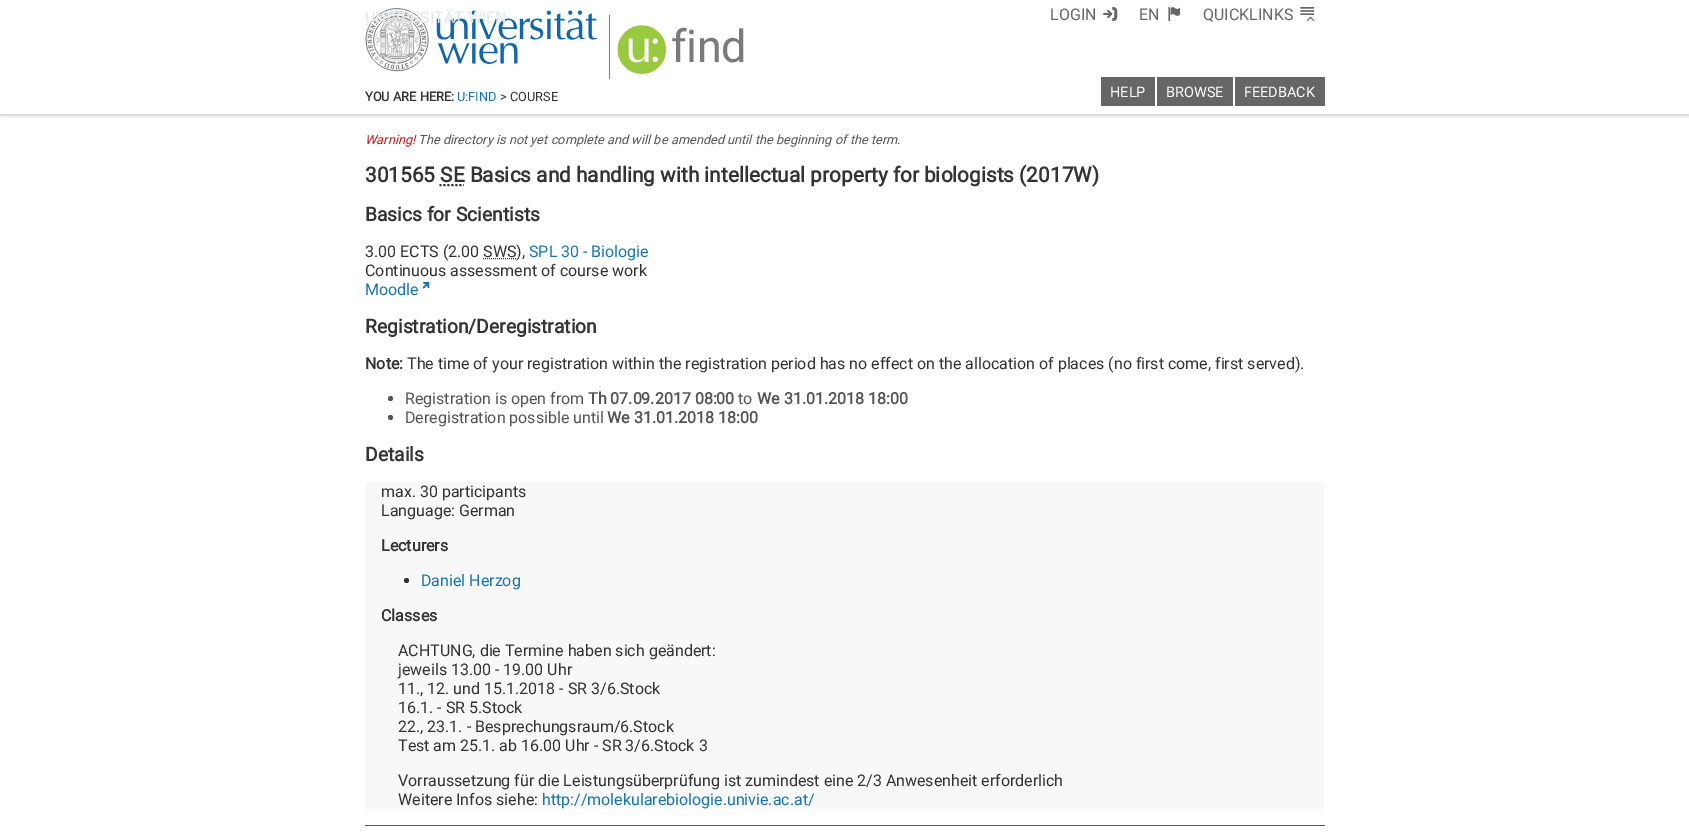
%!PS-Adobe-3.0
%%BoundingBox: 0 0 1689 832
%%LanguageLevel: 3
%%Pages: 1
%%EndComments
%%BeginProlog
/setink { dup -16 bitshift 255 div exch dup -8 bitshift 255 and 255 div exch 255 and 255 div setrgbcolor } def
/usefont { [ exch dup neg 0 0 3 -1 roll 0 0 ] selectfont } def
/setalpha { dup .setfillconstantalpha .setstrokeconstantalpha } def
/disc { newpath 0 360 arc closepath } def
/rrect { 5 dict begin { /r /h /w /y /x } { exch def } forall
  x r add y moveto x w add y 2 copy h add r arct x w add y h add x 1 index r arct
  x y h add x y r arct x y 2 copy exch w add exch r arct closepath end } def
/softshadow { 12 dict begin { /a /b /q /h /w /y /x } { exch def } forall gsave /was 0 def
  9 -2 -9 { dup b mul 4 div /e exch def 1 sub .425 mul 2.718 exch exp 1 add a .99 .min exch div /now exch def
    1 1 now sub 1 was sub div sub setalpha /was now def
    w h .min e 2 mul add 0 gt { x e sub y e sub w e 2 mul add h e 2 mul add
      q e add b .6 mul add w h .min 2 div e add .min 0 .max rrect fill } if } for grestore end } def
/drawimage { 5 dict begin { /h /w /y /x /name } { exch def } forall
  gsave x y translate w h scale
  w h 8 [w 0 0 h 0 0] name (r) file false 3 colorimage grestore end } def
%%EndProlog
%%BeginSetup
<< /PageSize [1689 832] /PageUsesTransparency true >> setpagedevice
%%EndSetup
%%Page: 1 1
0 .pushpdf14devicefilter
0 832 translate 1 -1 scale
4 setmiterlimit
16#FFFFFF setink
0 0 1689 832 rectfill
16#000000 setink
0 2 1689 114 0 1.5 0.18 softshadow
16#FFFFFF setink
0 0 1689 114 rectfill
(img1.raw) 365 8 232 64 drawimage
/Roboto-Regular 16 usefont
16#E2E7EC setink
365 23 moveto (UNIVERSITÄT WIEN) show
16#7A7A7A setink
609 15 1 64 rectfill
(img2.raw) 617 25 50 49 drawimage
/Roboto-Regular 45 usefont
671 62 moveto -0.5 0 (find) ashow
/Roboto-Regular 16 usefont
16#666666 setink
1050 20 moveto (LOGIN) show
(img3.raw) 1103 7 15 14 drawimage
1139 20 moveto (EN) show
(img4.raw) 1168 7 13 14 drawimage
1203 20 moveto (QUICKLINKS) show
(img5.raw) 1300 7 15 14 drawimage
1101 77 54 29 rectfill
/Roboto-Regular 14.5 usefont
16#FFFFFF setink
1110 97 moveto (HELP) show
16#666666 setink
1157 77 76 29 rectfill
16#FFFFFF setink
1166 97 moveto (BROWSE) show
16#666666 setink
1235 77 90 29 rectfill
16#FFFFFF setink
1244 97 moveto (FEEDBACK) show
/Roboto-Bold 12.8 usefont
16#333333 setink
365 101 moveto (YOU ARE HERE:) show
/Roboto-Regular 12.8 usefont
16#1A74B0 setink
457 101 moveto (U:FIND) show
16#333333 setink
500 101 moveto (> COURSE) show
/Roboto-Italic 12.8 usefont
16#C4161C setink
365 144 moveto (Warning!) show
16#545454 setink
418 144 moveto (The directory is not yet complete and will be amended until the beginning of the term.) show
/Roboto-Bold 20.8 usefont
16#333333 setink
365 182 moveto (301565 SE Basics and handling with intellectual property for biologists \(2017W\)) show
2 setlinewidth
[2 2] 0 setdash
439.5 185 moveto 464 185 lineto stroke
/Roboto-Bold 19.25 usefont
365 221 moveto (Basics for Scientists) show
/Roboto-Regular 16 usefont
365 257 moveto (3.00 ECTS \(2.00 SWS\),) show
16#1A74B0 setink
529 257 moveto (SPL 30 - Biologie) show
16#333333 setink
1 setlinewidth
[1 1] 0 setdash
483 258.5 moveto 516 258.5 lineto stroke
365 276 moveto (Continuous assessment of course work) show
16#1A74B0 setink
365 295 moveto (Moodle) show
(img6.raw) 422 282 8 7 drawimage
/Roboto-Bold 19.25 usefont
16#333333 setink
365 333 moveto (Registration/Deregistration) show
/Roboto-Bold 16 usefont
365 369 moveto (Note:) show
/Roboto-Regular 16 usefont
407 369 moveto (The time of your registration within the registration period has no effect on the allocation of places \(no first come, first served\).) show
16#545454 setink
390.5 398.5 2.5 disc fill
405 404 moveto (Registration is open from) show
/Roboto-Bold 16 usefont
588 404 moveto (Th 07.09.2017 08:00) show
/Roboto-Regular 16 usefont
738 404 moveto (to) show
/Roboto-Bold 16 usefont
757 404 moveto (We 31.01.2018 18:00) show
390.5 417.5 2.5 disc fill
/Roboto-Regular 16 usefont
405 423 moveto (Deregistration possible until) show
/Roboto-Bold 16 usefont
607 423 moveto (We 31.01.2018 18:00) show
/Roboto-Bold 19.25 usefont
16#333333 setink
365 461 moveto (Details) show
16#F8F8F8 setink
365 482 960 327 rectfill
/Roboto-Regular 16 usefont
16#333333 setink
381 497 moveto (max. 30 participants) show
381 516 moveto (Language: German) show
/Roboto-Bold 16 usefont
381 551 moveto (Lecturers) show
406.5 580.5 2.5 disc fill
/Roboto-Regular 16 usefont
16#1A74B0 setink
421 586 moveto (Daniel Herzog) show
/Roboto-Bold 16 usefont
16#333333 setink
381 621 moveto (Classes) show
/Roboto-Regular 16 usefont
[
    [(ACHTUNG, die Termine haben sich geändert:) 398 656]
    [(jeweils 13.00 - 19.00 Uhr) 398 675]
    [(11., 12. und 15.1.2018 - SR 3/6.Stock) 398 694]
    [(16.1. - SR 5.Stock) 398 713]
    [(22., 23.1. - Besprechungsraum/6.Stock) 398 732]
    [(Test am 25.1. ab 16.00 Uhr - SR 3/6.Stock 3) 398 751]
    [(Vorraussetzung für die Leistungsüberprüfung ist zumindest eine 2/3 Anwesenheit erforderlich) 398 786]
    [(Weitere Infos siehe:) 398 805]
] { aload pop moveto show } forall
16#1A74B0 setink
542 805 moveto (http://molekularebiologie.univie.ac.at/) show
16#545454 setink
365 825 960 1 rectfill
.poppdf14devicefilter showpage
%%EOF
